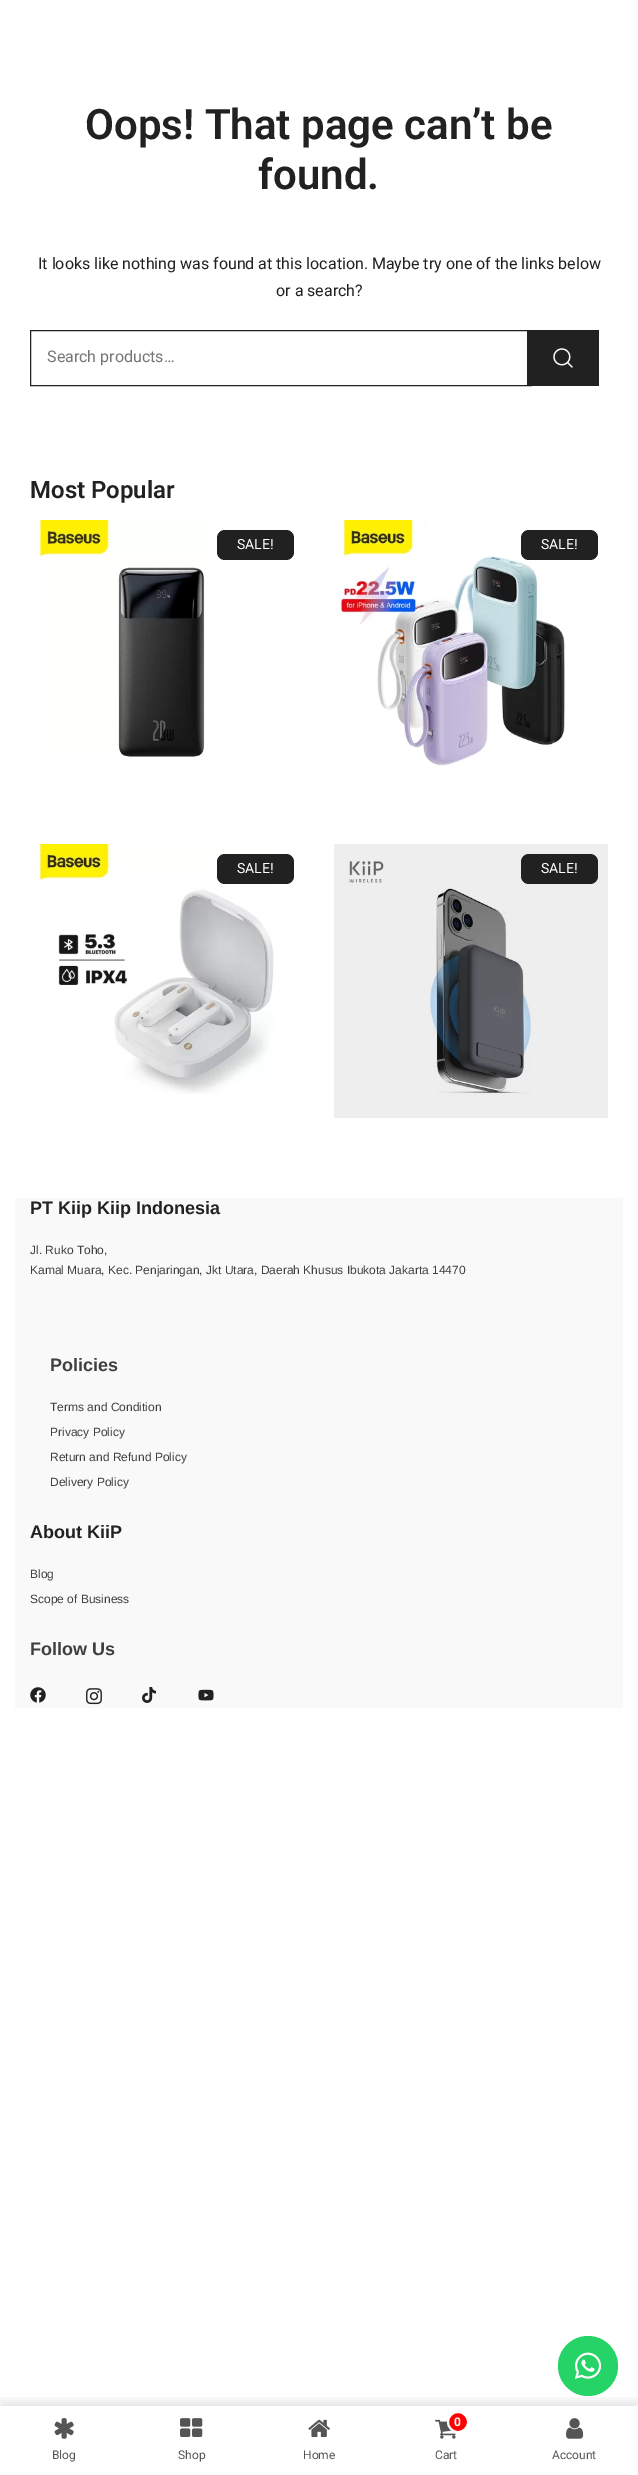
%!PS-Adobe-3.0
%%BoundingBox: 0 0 638 2475
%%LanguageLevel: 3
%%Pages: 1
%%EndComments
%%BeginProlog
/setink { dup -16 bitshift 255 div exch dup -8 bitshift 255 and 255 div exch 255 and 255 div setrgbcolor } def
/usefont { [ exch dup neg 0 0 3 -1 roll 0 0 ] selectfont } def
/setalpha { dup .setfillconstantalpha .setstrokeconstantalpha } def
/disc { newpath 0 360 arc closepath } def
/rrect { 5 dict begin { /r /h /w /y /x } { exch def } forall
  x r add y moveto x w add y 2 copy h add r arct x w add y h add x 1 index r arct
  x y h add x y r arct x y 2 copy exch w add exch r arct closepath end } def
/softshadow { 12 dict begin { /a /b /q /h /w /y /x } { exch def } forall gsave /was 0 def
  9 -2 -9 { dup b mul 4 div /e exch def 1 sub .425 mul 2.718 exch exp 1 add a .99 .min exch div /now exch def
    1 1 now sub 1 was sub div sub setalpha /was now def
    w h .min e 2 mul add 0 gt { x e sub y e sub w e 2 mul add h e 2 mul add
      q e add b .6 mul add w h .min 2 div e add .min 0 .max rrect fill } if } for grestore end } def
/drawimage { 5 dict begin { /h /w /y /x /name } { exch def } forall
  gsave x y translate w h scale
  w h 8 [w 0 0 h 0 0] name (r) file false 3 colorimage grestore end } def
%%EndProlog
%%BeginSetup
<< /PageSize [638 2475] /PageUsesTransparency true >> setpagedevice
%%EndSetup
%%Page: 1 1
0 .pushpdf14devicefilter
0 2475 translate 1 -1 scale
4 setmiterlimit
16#FFFFFF setink
0 0 638 2475 rectfill
/Roboto-SemiBold 42 usefont
16#212121 setink
85 139 moveto (Oops! That page can’t be) show
258 189 moveto (found.) show
/Roboto-Regular 16 usefont
38 269 moveto (It looks like nothing was found at this location. Maybe try one of the links below) show
276 296 moveto (or a search?) show
30.5 330.5 501 55 rectstroke
16#757575 setink
47 362 moveto (Search products…) show
16#212121 setink
527 330 72 56 rectfill
(img1.raw) 553 348 20 20 drawimage
/Roboto-SemiBold 24 usefont
30 498 moveto (Most Popular) show
(img2.raw) 39 520 166 237 drawimage
217 530 77 30 8 rrect fill
/Roboto-Regular 14 usefont
16#FFFFFF setink
237 549 moveto (SALE!) show
(img3.raw) 339 520 227 246 drawimage
16#212121 setink
521 530 77 30 8 rrect fill
16#FFFFFF setink
541 549 moveto (SALE!) show
(img4.raw) 38 844 236 250 drawimage
16#212121 setink
217 854 77 30 8 rrect fill
16#FFFFFF setink
237 873 moveto (SALE!) show
(img5.raw) 334 844 274 274 drawimage
16#212121 setink
521 854 77 30 8 rrect fill
16#FFFFFF setink
541 873 moveto (SALE!) show
16#F9F9F9 setink
15 1198 608 510 rectfill
/LiberationSans-Bold 18 usefont
16#212121 setink
30 1214 moveto (PT Kiip Kiip Indonesia) show
/LiberationSans-Regular 12 usefont
16#3F3F3F setink
30 1254 moveto (Jl. Ruko Toho,) show
30 1274 moveto (Kamal Muara, Kec. Penjaringan, Jkt Utara, Daerah Khusus Ibukota Jakarta 14470) show
16#25D366 setink
588 2366 30 disc fill
(img6.raw) 574 2352 28 27 drawimage
/LiberationSans-Bold 18 usefont
16#3F3F3F setink
50 1371 moveto (Policies) show
/LiberationSans-Regular 12 usefont
[
    [(Terms and Condition) 50 1411]
    [(Privacy Policy) 50 1436]
    [(Return and Refund Policy) 50 1461]
    [(Delivery Policy) 50 1486]
] { aload pop moveto show } forall
/LiberationSans-Bold 18 usefont
16#212121 setink
30 1538 moveto (About KiiP) show
/LiberationSans-Regular 12 usefont
16#3F3F3F setink
30 1578 moveto (Blog) show
30 1603 moveto (Scope of Business) show
/LiberationSans-Bold 18 usefont
30 1655 moveto (Follow Us) show
(img7.raw) 30 1687 16 16 drawimage
(img8.raw) 86 1688 16 17 drawimage
(img9.raw) 142 1687 14 16 drawimage
(img10.raw) 198 1689 16 12 drawimage
gsave
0 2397 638 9 rectclip
16#000000 setink
0 2401 638 69 0 5 0.1 softshadow
grestore
(img11.raw) 54 2418 20 21 drawimage
/Roboto-Regular 12 usefont
16#555555 setink
52 2459 moveto (Blog) show
(img12.raw) 180 2418 23 19 drawimage
178 2459 moveto (Shop) show
(img13.raw) 308 2419 22 18 drawimage
303 2459 moveto (Home) show
(img14.raw) 435 2419 21 20 drawimage
16#FF0000 setink
458 2422 10 disc gsave fill grestore
16#FFFFFF setink
2 setlinewidth
stroke
/Roboto-Bold 12 usefont
454 2426 moveto (0) show
/Roboto-Regular 12 usefont
16#555555 setink
435 2459 moveto (Cart) show
(img15.raw) 566 2418 18 21 drawimage
552 2459 moveto (Account) show
.poppdf14devicefilter showpage
%%EOF
